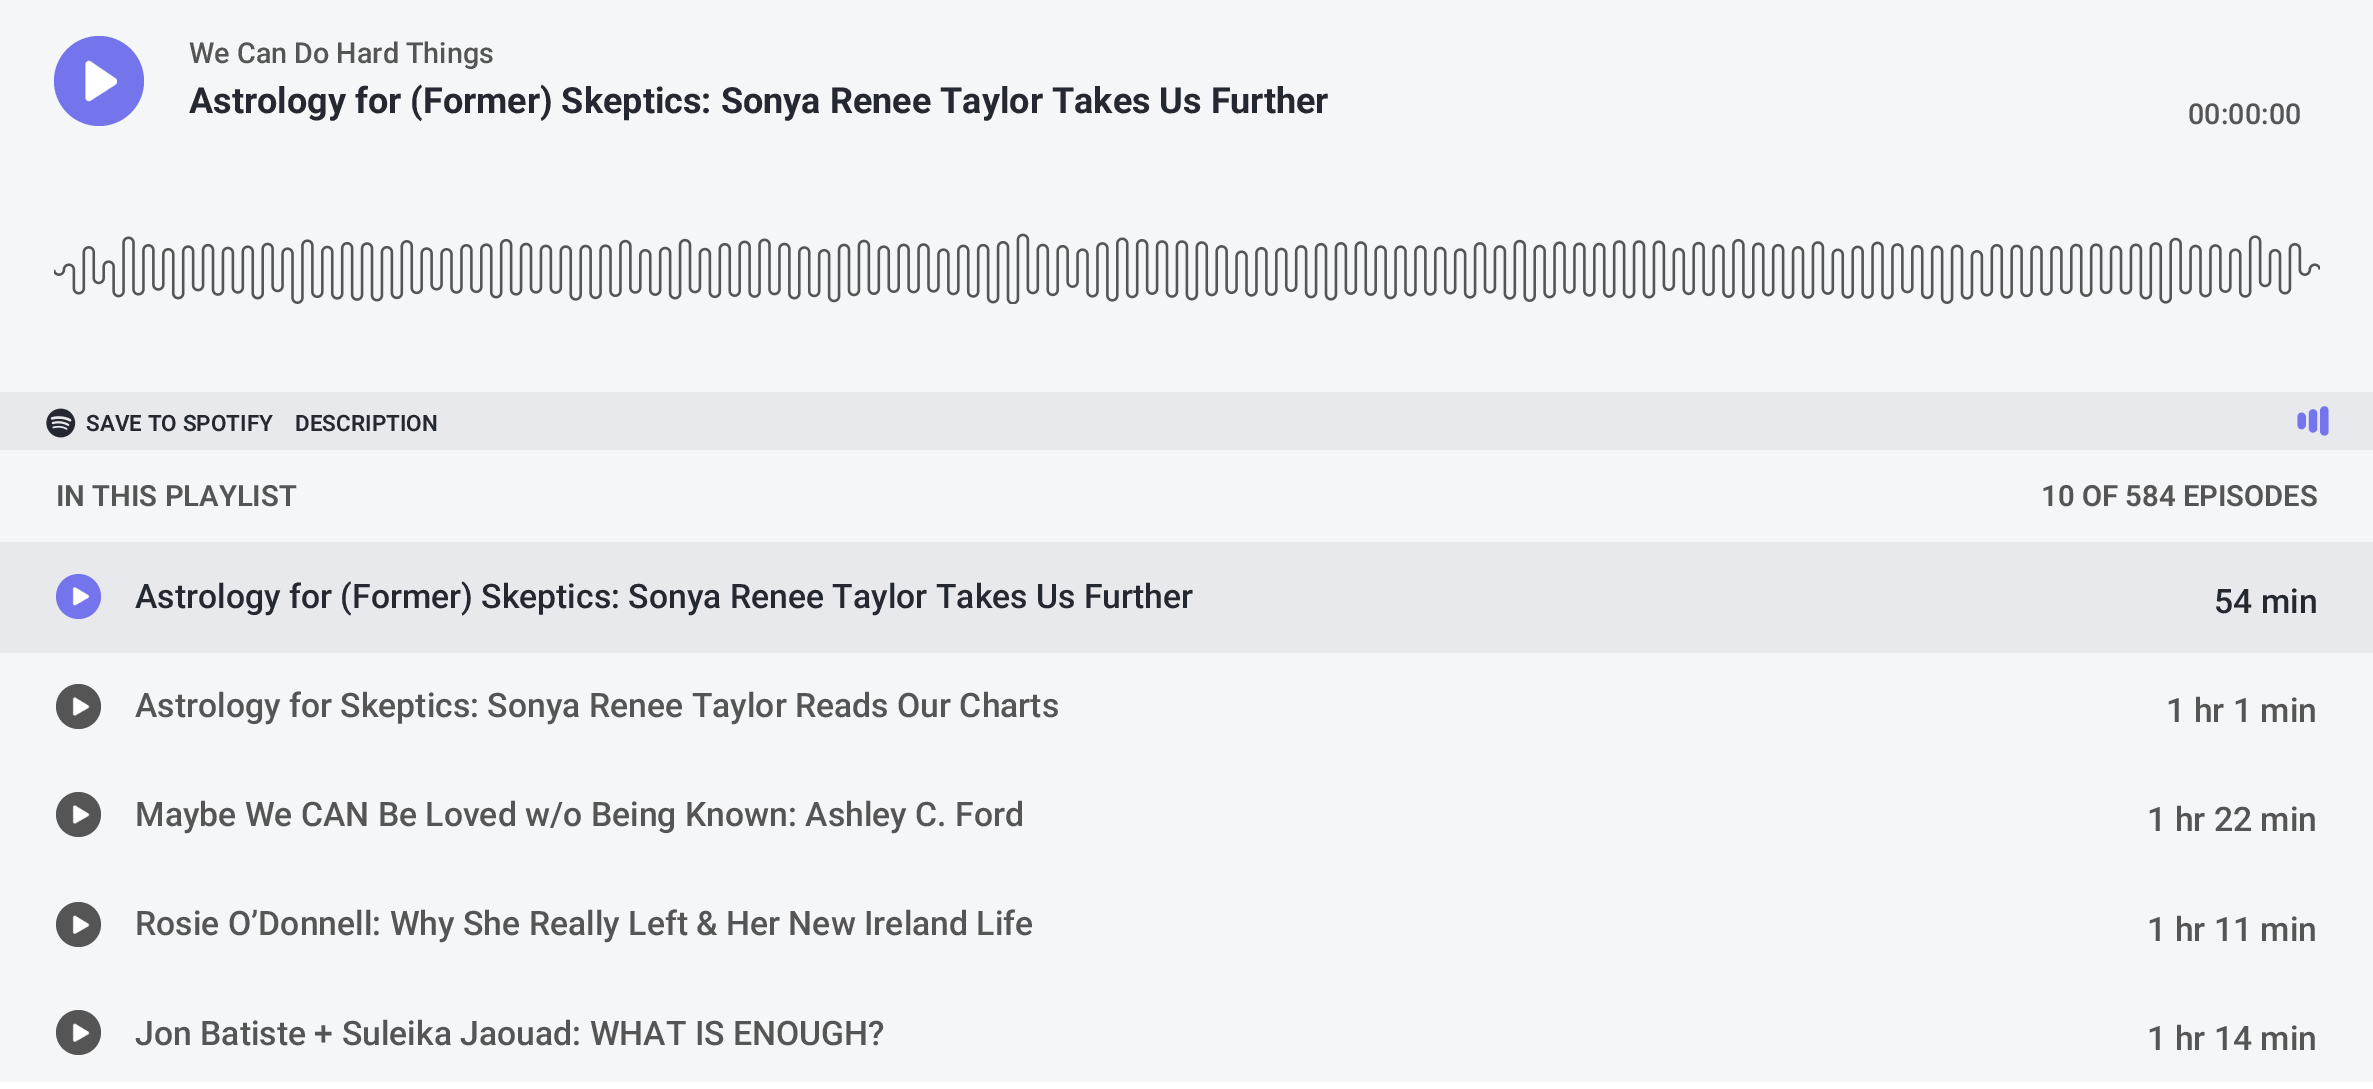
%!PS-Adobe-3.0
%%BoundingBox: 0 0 2373 1089
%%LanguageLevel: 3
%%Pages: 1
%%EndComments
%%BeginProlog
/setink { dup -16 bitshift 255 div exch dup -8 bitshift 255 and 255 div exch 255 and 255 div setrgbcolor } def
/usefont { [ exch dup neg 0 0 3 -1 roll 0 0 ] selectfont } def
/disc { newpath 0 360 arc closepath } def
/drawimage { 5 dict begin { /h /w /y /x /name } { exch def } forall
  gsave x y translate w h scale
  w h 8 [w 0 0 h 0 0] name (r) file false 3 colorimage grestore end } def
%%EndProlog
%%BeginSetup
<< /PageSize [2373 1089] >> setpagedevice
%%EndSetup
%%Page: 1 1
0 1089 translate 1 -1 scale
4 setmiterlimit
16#FFFFFF setink
0 0 2373 1089 rectfill
16#F5F6F7 setink
0 0 2373 392 rectfill
16#7474EC setink
99 81 45 disc fill
(img1.raw) 85 60 32 42 drawimage
/Roboto-Medium 28.75 usefont
16#555555 setink
189 63 moveto (We Can Do Hard Things) show
/Roboto-Bold 36 usefont
16#232831 setink
189 113 moveto (Astrology for \(Former\) Skeptics: Sonya Renee Taylor Takes Us Further) show
/Roboto-Medium 28.75 usefont
16#555555 setink
2188 124 moveto (00:00:00) show
(img2.raw) 54 233 2266 71 drawimage
16#E7E9EC setink
0 392 2373 58 rectfill
(img3.raw) 46 408 30 30 drawimage
/Roboto-SemiBold 22.5 usefont
16#232831 setink
86 431 moveto (SAVE TO SPOTIFY) show
295 431 moveto (DESCRIPTION) show
(img4.raw) 2297 406 32 30 drawimage
16#F5F6F7 setink
0 450 2373 632 rectfill
/Roboto-SemiBold 29.25 usefont
16#555555 setink
56 506 moveto (IN THIS PLAYLIST) show
2041 506 moveto (10 OF 584 EPISODES) show
16#E7E9EC setink
0 542 2373 111 rectfill
16#7474EC setink
78.5 596.5 22.5 disc fill
(img5.raw) 72 587 18 19 drawimage
/Roboto-Medium 33.75 usefont
16#232831 setink
135 608 moveto (Astrology for \(Former\) Skeptics: Sonya Renee Taylor Takes Us Further) show
2214 613 moveto (54 min) show
16#555555 setink
78.5 706.5 22.5 disc fill
(img6.raw) 72 697 18 19 drawimage
135 717 moveto (Astrology for Skeptics: Sonya Renee Taylor Reads Our Charts) show
2166 722 moveto (1 hr 1 min) show
78.5 814.5 22.5 disc fill
(img6.raw) 72 805 18 19 drawimage
135 826 moveto (Maybe We CAN Be Loved w/o Being Known: Ashley C. Ford) show
2147 831 moveto (1 hr 22 min) show
78.5 924.5 22.5 disc fill
(img7.raw) 72 915 18 19 drawimage
135 935 moveto (Rosie O’Donnell: Why She Really Left & Her New Ireland Life) show
2147 941 moveto (1 hr 11 min) show
78.5 1032.5 22.5 disc fill
(img7.raw) 72 1023 18 19 drawimage
135 1045 moveto (Jon Batiste + Suleika Jaouad: WHAT IS ENOUGH?) show
2147 1050 moveto (1 hr 14 min) show
showpage
%%EOF
